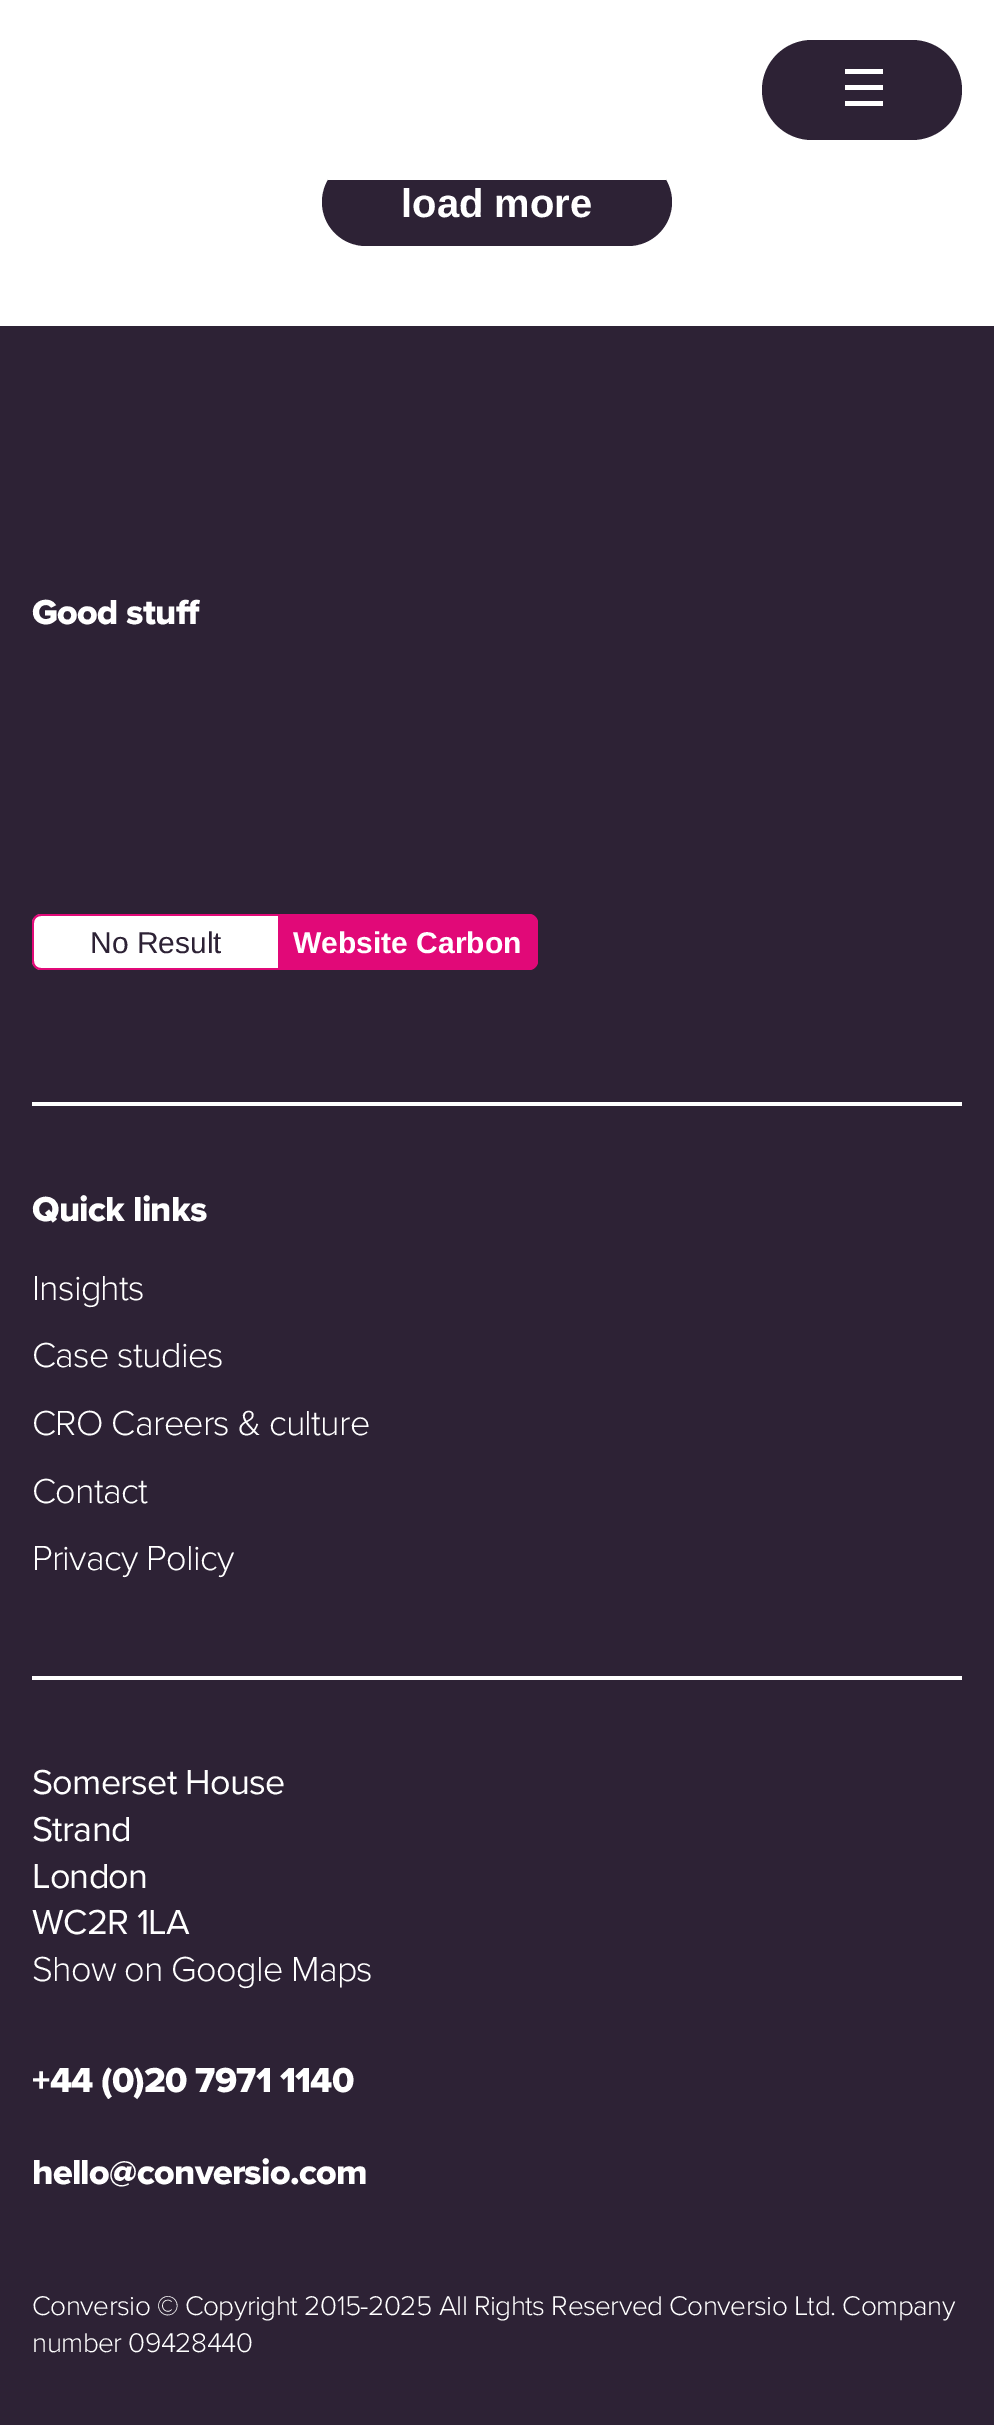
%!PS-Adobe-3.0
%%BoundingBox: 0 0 994 2425
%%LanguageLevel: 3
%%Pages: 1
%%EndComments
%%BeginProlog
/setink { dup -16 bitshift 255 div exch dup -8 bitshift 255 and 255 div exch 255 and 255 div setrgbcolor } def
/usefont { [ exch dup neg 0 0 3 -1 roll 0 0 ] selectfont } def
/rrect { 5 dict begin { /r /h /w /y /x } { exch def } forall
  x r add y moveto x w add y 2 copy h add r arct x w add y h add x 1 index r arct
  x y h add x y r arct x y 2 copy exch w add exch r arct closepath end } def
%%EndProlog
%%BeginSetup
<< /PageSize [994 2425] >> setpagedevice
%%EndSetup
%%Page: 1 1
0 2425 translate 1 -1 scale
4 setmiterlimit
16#FFFFFF setink
0 0 994 2425 rectfill
16#2D2235 setink
322 158 350 88 44 rrect fill
16#FFFFFF setink
328 158 338 22 rectfill
16#2D2235 setink
762 40 200 100 50 rrect fill
[
    [845 69 38 5 16#FFFFFF]
    [845 85 38 5 16#FFFFFF]
    [845 101 38 5 16#FFFFFF]
] { aload pop setink rectfill } forall
/LiberationSans-Bold 40 usefont
401 217 moveto (load more) show
16#2D2235 setink
0 326 994 2099 rectfill
/ProximaNova-ExtraBold 36 usefont
16#FFFFFF setink
32 624 moveto -0.75 0 (Good stuff) ashow
42 914 moveto 278 914 lineto 278 970 lineto 42 970 lineto 36.5 970 32 965.5 32 960 curveto 32 924 lineto 32 918.5 36.5 914 42 914 curveto closepath fill
16#E10978 setink
41 914 moveto 278 914 lineto 278 970 lineto 41 970 lineto 36 970 32 966 32 961 curveto 32 923 lineto 32 918 36 914 41 914 curveto closepath 41 916 moveto 278 916 lineto 278 968 lineto 41 968 lineto 37 968 34 965 34 961 curveto 34 923 lineto 34 919 37 916 41 916 curveto closepath eofill
/LiberationSans-Regular 30 usefont
16#2D2235 setink
90 953 moveto (No Result) show
16#E10978 setink
278 914 moveto 528 914 lineto 533.5 914 538 918.5 538 924 curveto 538 960 lineto 538 965.5 533.5 970 528 970 curveto 278 970 lineto closepath fill
278 914 moveto 529 914 lineto 534 914 538 918 538 923 curveto 538 961 lineto 538 966 534 970 529 970 curveto 278 970 lineto closepath 278 916 moveto 529 916 lineto 533 916 536 919 536 923 curveto 536 961 lineto 536 965 533 968 529 968 curveto 278 968 lineto closepath eofill
/LiberationSans-Bold 30 usefont
16#FFFFFF setink
293 953 moveto (Website Carbon) show
32 1102 930 4 rectfill
32 1676 930 4 rectfill
/ProximaNova-ExtraBold 36 usefont
32 1221 moveto -0.75 0 (Quick links) ashow
/ProximaNova-Light 36 usefont
32 1300 moveto -0.75 0 (Insights) ashow
32 1367 moveto -0.75 0 (Case studies) ashow
32 1435 moveto -0.75 0 (CRO Careers & culture) ashow
32 1503 moveto -0.75 0 (Contact) ashow
32 1570 moveto -0.75 0 (Privacy Policy) ashow
/ProximaNova-Regular 36 usefont
32 1794 moveto -0.75 0 (Somerset House) ashow
32 1841 moveto -0.75 0 (Strand) ashow
32 1888 moveto -0.75 0 (London) ashow
32 1934 moveto -0.75 0 (WC2R 1LA) ashow
/ProximaNova-Light 36 usefont
32 1981 moveto -0.75 0 (Show on Google Maps) ashow
/ProximaNova-ExtraBold 36 usefont
32 2092 moveto -0.75 0 (+44 \(0\)20 7971 1140) ashow
32 2184 moveto -0.75 0 (hello@conversio.com) ashow
/ProximaNova-Light 28 usefont
32 2315 moveto -0.55 0 (Conversio © Copyright 2015-2025 All Rights Reserved Conversio Ltd. Company) ashow
32 2352 moveto -0.55 0 (number 09428440) ashow
showpage
%%EOF
